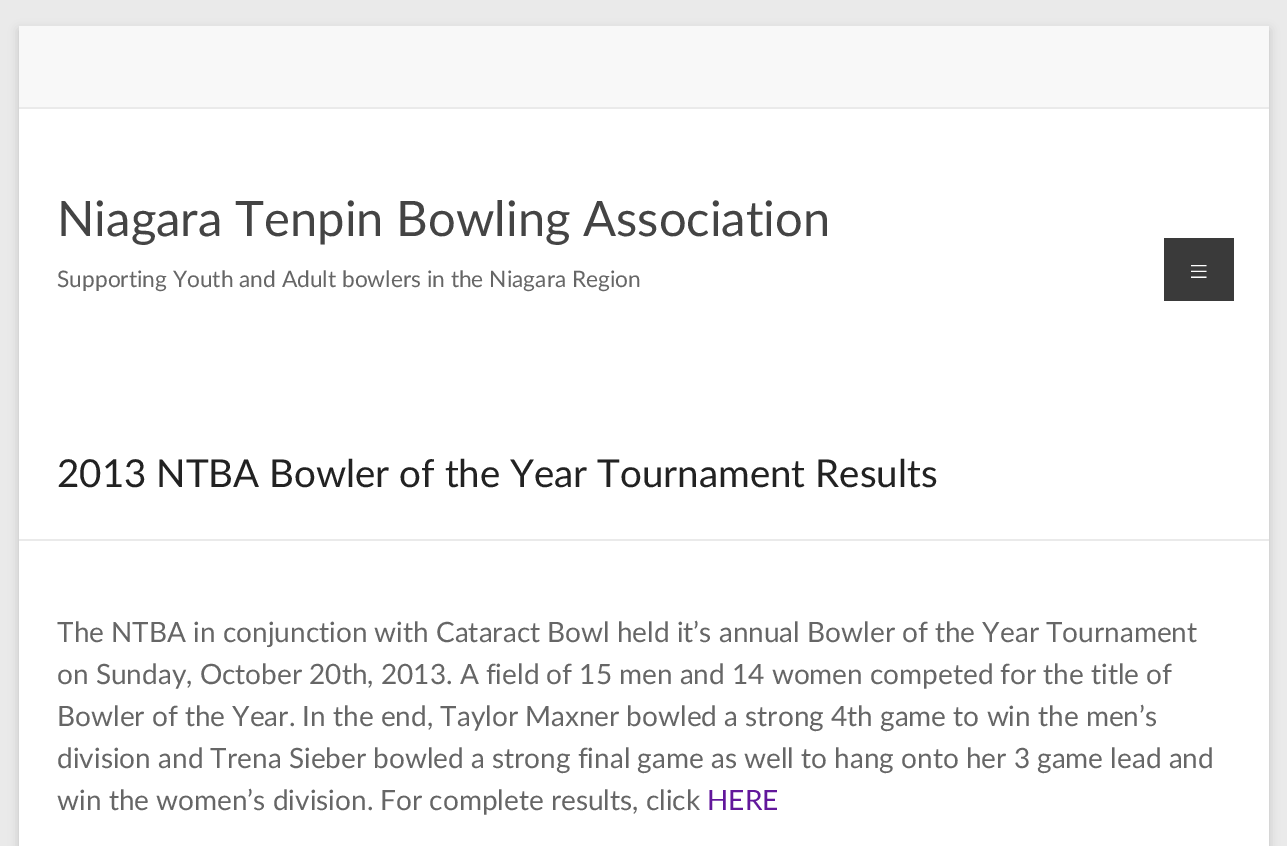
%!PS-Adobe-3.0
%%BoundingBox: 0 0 1287 846
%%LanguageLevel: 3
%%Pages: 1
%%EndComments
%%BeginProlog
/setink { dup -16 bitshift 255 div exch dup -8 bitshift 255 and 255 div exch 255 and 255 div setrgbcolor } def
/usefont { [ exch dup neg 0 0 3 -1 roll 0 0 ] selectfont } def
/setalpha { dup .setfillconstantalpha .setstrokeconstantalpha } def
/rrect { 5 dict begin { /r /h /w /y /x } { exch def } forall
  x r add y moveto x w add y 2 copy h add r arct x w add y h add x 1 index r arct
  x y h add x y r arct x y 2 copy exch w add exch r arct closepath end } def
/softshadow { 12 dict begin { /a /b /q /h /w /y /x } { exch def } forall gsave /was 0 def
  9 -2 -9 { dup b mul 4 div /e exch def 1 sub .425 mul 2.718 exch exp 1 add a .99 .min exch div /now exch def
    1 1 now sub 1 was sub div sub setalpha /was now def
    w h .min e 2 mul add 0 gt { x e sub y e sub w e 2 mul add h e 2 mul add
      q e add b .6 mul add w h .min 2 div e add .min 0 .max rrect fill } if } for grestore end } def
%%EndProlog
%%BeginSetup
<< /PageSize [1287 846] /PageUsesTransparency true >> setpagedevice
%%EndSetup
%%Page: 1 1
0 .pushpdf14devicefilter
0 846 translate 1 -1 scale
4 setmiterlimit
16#EAEAEA setink
0 0 1287 846 rectfill
16#646464 setink
19 30 1250 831 0 5 0.3 softshadow
[
    [19 109 1250 737 16#FFFFFF]
    [19 26 1250 81 16#F8F8F8]
    [19 107 1250 2 16#EAEAEA]
] { aload pop setink rectfill } forall
/Lato-Regular 49 usefont
16#444444 setink
57 236 moveto (Niagara Tenpin Bowling Association) show
/Lato-Regular 22.75 usefont
16#666666 setink
57 287 moveto (Supporting Youth and Adult bowlers in the Niagara Region) show
16#3A3A3A setink
1164 238 70 63 rectfill
/Lato-Light 37 usefont
16#FFFFFF setink
1188 284 moveto (≡) show
16#EAEAEA setink
19 539 1250 2 rectfill
/Lato-Regular 38.5 usefont
16#222222 setink
57 487 moveto (2013 NTBA Bowler of the Year Tournament Results) show
/Lato-Regular 28 usefont
16#666666 setink
[
    [(The NTBA in conjunction with Cataract Bowl held it’s annual Bowler of the Year Tournament) 57 642]
    [(on Sunday, October 20th, 2013. A field of 15 men and 14 women competed for the title of) 57 684]
    [(Bowler of the Year. In the end, Taylor Maxner bowled a strong 4th game to win the men’s) 57 726]
    [(division and Trena Sieber bowled a strong final game as well to hang onto her 3 game lead and) 57 768]
    [(win the women’s division. For complete results, click) 57 810]
] { aload pop moveto show } forall
16#62179B setink
707 810 moveto (HERE) show
.poppdf14devicefilter showpage
%%EOF
